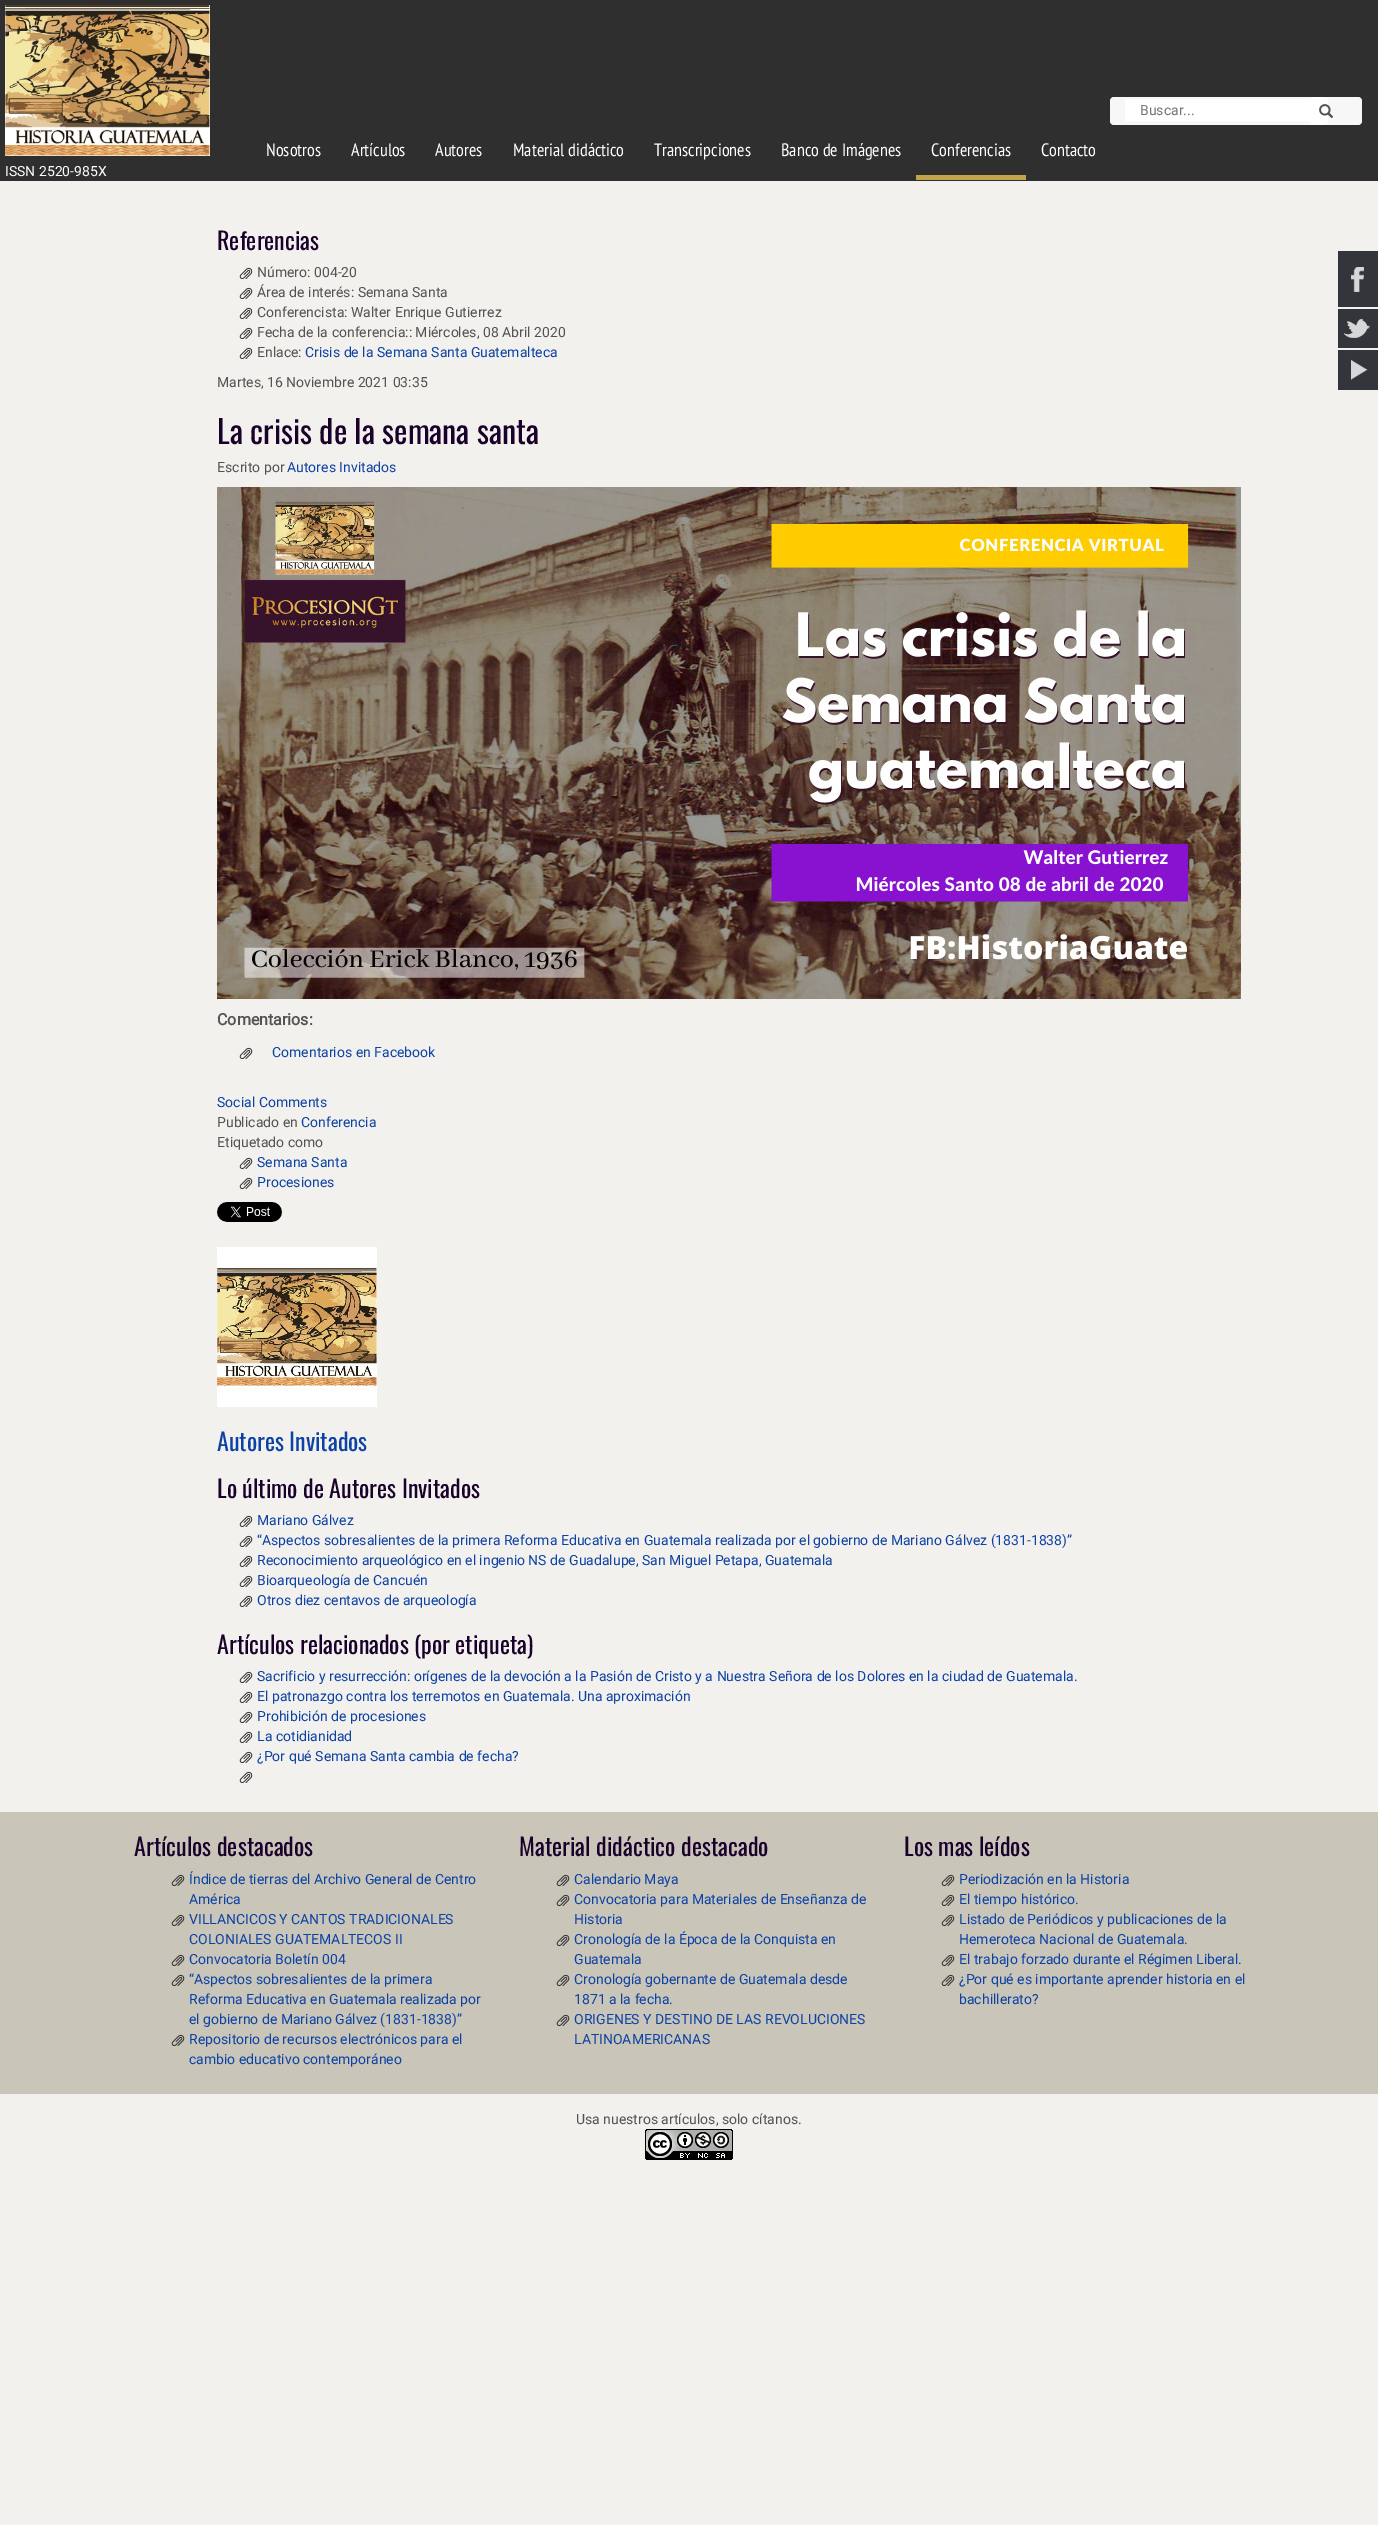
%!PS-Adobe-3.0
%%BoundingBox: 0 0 1378 2525
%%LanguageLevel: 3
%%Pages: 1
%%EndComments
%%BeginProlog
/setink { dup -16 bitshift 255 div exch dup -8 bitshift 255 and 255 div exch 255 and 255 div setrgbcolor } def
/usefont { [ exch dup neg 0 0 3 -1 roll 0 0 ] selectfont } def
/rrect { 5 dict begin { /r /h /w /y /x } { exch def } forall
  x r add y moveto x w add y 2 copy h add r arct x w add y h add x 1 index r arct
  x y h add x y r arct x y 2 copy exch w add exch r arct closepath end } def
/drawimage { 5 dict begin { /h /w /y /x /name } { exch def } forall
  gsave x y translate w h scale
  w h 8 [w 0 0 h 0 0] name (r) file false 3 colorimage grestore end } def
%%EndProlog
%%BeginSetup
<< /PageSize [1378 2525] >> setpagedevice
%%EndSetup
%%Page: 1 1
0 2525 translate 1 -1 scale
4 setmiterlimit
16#F3F1ED setink
0 0 1378 2525 rectfill
16#2F2F2F setink
0 0 1378 181 rectfill
16#F7F7F7 setink
1110 97 252 28 4 rrect fill
16#FFFFFF setink
1125 99 185 22 rectfill
/Roboto-Regular 14 usefont
16#757575 setink
1140 115 moveto (Buscar...) show
16#FFFFFF setink
1310 97 18 28 4 rrect fill
(img1.raw) 1319 104 15 14 drawimage
/PTSansNarrow-Regular 18 usefont
[
    [(Nosotros) 266 156]
    [(Artículos) 351 156]
    [(Autores) 435 156]
    [(Material didáctico) 513 156]
    [(Transcripciones) 654 156]
    [(Banco de Imágenes) 781 156]
] { aload pop moveto show } forall
16#C2A44A setink
916 175 110 5 rectfill
16#FFFFFF setink
931 156 moveto (Conferencias) show
1041 156 moveto (Contacto) show
(img2.raw) 5 5 205 151 drawimage
/Roboto-Regular 14 usefont
5 176 moveto (ISSN 2520-985X) show
/Oswald-Regular 24 usefont
16#1A012B setink
217 250 moveto (Referencias) show
(img3.raw) 239 267 14 13 drawimage
/Roboto-Regular 14 usefont
16#545252 setink
257 277 moveto (Número: 004-20) show
(img3.raw) 239 287 14 13 drawimage
257 297 moveto (Área de interés: Semana Santa) show
(img3.raw) 239 307 14 13 drawimage
257 317 moveto (Conferencista: Walter Enrique Gutierrez) show
(img3.raw) 239 327 14 13 drawimage
257 337 moveto (Fecha de la conferencia:: Miércoles, 08 Abril 2020) show
(img3.raw) 239 347 14 13 drawimage
257 357 moveto (Enlace:) show
16#0D42A4 setink
305 357 moveto (Crisis de la Semana Santa Guatemalteca) show
16#545252 setink
217 387 moveto (Martes, 16 Noviembre 2021 03:35) show
/Oswald-Regular 32 usefont
16#1A012B setink
217 444 moveto (La crisis de la semana santa) show
/Roboto-Regular 14 usefont
16#545252 setink
217 472 moveto (Escrito por) show
16#0D42A4 setink
287 472 moveto (Autores Invitados) show
(img4.raw) 217 487 1024 512 drawimage
/Roboto-Bold 16 usefont
16#545252 setink
217 1025 moveto (Comentarios:) show
(img3.raw) 239 1047 14 13 drawimage
/Roboto-Regular 14 usefont
16#0D42A4 setink
272 1057 moveto (Comentarios en Facebook) show
217 1107 moveto (Social Comments) show
16#545252 setink
217 1127 moveto (Publicado en) show
16#0D42A4 setink
301 1127 moveto (Conferencia) show
16#545252 setink
217 1147 moveto (Etiquetado como) show
(img3.raw) 239 1157 14 13 drawimage
16#0D42A4 setink
257 1167 moveto (Semana Santa) show
(img3.raw) 239 1177 14 13 drawimage
257 1187 moveto (Procesiones) show
(img5.raw) 217 1202 65 20 drawimage
(img6.raw) 217 1247 160 160 drawimage
/Oswald-Regular 24 usefont
217 1451 moveto (Autores Invitados) show
16#1A012B setink
217 1498 moveto (Lo último de Autores Invitados) show
(img3.raw) 239 1515 14 13 drawimage
/Roboto-Regular 14 usefont
16#0D42A4 setink
257 1525 moveto (Mariano Gálvez) show
(img3.raw) 239 1535 14 13 drawimage
257 1545 moveto (“Aspectos sobresalientes de la primera Reforma Educativa en Guatemala realizada por el gobierno de Mariano Gálvez \(1831-1838\)”) show
(img3.raw) 239 1555 14 13 drawimage
257 1565 moveto (Reconocimiento arqueológico en el ingenio NS de Guadalupe, San Miguel Petapa, Guatemala) show
(img3.raw) 239 1575 14 13 drawimage
257 1585 moveto (Bioarqueología de Cancuén) show
(img3.raw) 239 1595 14 13 drawimage
257 1605 moveto (Otros diez centavos de arqueología) show
/Oswald-Regular 24 usefont
16#1A012B setink
217 1654 moveto (Artículos relacionados \(por etiqueta\)) show
(img3.raw) 239 1671 14 13 drawimage
/Roboto-Regular 14 usefont
16#0D42A4 setink
257 1681 moveto (Sacrificio y resurrección: orígenes de la devoción a la Pasión de Cristo y a Nuestra Señora de los Dolores en la ciudad de Guatemala.) show
(img3.raw) 239 1691 14 13 drawimage
257 1701 moveto (El patronazgo contra los terremotos en Guatemala. Una aproximación) show
(img3.raw) 239 1711 14 13 drawimage
257 1721 moveto (Prohibición de procesiones) show
(img3.raw) 239 1731 14 13 drawimage
257 1741 moveto (La cotidianidad) show
(img3.raw) 239 1751 14 13 drawimage
257 1761 moveto (¿Por qué Semana Santa cambia de fecha?) show
(img3.raw) 239 1771 14 13 drawimage
16#33353B setink
1338 251 40 56 rectfill
(img7.raw) 1351 267 13 25 drawimage
1338 309 40 39 rectfill
(img8.raw) 1344 319 26 19 drawimage
1338 350 40 40 rectfill
(img9.raw) 1351 359 17 22 drawimage
16#C9C5B9 setink
0 1812 1378 282 rectfill
/Oswald-Regular 24 usefont
16#1A012B setink
134 1856 moveto (Artículos destacados) show
(img10.raw) 171 1874 14 13 drawimage
/Roboto-Regular 14 usefont
16#0D42A4 setink
189 1884 moveto (Índice de tierras del Archivo General de Centro) show
189 1904 moveto (América) show
(img10.raw) 171 1914 14 13 drawimage
189 1924 moveto (VILLANCICOS Y CANTOS TRADICIONALES) show
189 1944 moveto (COLONIALES GUATEMALTECOS II) show
(img10.raw) 171 1954 14 13 drawimage
189 1964 moveto (Convocatoria Boletín 004) show
(img10.raw) 171 1974 14 13 drawimage
[
    [(“Aspectos sobresalientes de la primera) 189 1984]
    [(Reforma Educativa en Guatemala realizada por) 189 2004]
    [(el gobierno de Mariano Gálvez \(1831-1838\)”) 189 2024]
] { aload pop moveto show } forall
(img10.raw) 171 2034 14 13 drawimage
189 2044 moveto (Repositorio de recursos electrónicos para el) show
189 2064 moveto (cambio educativo contemporáneo) show
/Oswald-Regular 24 usefont
16#1A012B setink
519 1856 moveto (Material didáctico destacado) show
(img10.raw) 556 1874 14 13 drawimage
/Roboto-Regular 14 usefont
16#0D42A4 setink
574 1884 moveto (Calendario Maya) show
(img10.raw) 556 1894 14 13 drawimage
574 1904 moveto (Convocatoria para Materiales de Enseñanza de) show
574 1924 moveto (Historia) show
(img10.raw) 556 1934 14 13 drawimage
574 1944 moveto (Cronología de la Época de la Conquista en) show
574 1964 moveto (Guatemala) show
(img10.raw) 556 1974 14 13 drawimage
574 1984 moveto (Cronología gobernante de Guatemala desde) show
574 2004 moveto (1871 a la fecha.) show
(img10.raw) 556 2014 14 13 drawimage
574 2024 moveto (ORIGENES Y DESTINO DE LAS REVOLUCIONES) show
574 2044 moveto (LATINOAMERICANAS) show
/Oswald-Regular 24 usefont
16#1A012B setink
904 1856 moveto (Los mas leídos) show
(img10.raw) 941 1874 14 13 drawimage
/Roboto-Regular 14 usefont
16#0D42A4 setink
959 1884 moveto (Periodización en la Historia) show
(img10.raw) 941 1894 14 13 drawimage
959 1904 moveto (El tiempo histórico.) show
(img10.raw) 941 1914 14 13 drawimage
959 1924 moveto (Listado de Periódicos y publicaciones de la) show
959 1944 moveto (Hemeroteca Nacional de Guatemala.) show
(img10.raw) 941 1954 14 13 drawimage
959 1964 moveto (El trabajo forzado durante el Régimen Liberal.) show
(img10.raw) 941 1974 14 13 drawimage
959 1984 moveto (¿Por qué es importante aprender historia en el) show
959 2004 moveto (bachillerato?) show
16#545252 setink
576 2124 moveto (Usa nuestros artículos, solo cítanos.) show
(img11.raw) 645 2129 88 31 drawimage
showpage
%%EOF
